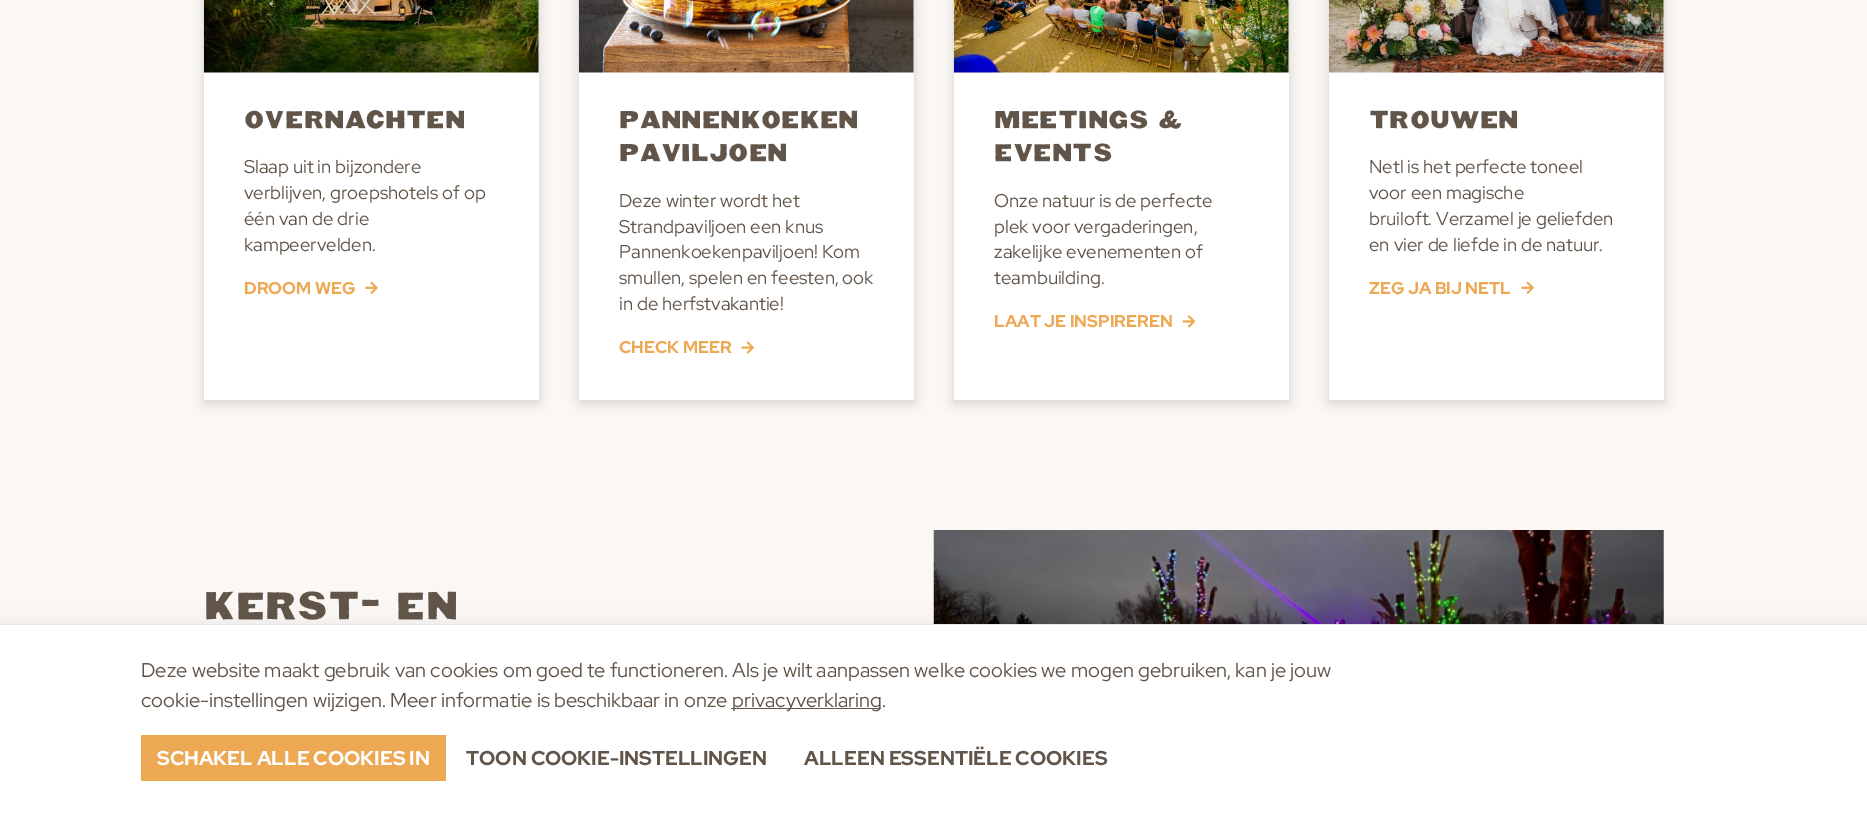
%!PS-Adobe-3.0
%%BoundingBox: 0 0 1867 815
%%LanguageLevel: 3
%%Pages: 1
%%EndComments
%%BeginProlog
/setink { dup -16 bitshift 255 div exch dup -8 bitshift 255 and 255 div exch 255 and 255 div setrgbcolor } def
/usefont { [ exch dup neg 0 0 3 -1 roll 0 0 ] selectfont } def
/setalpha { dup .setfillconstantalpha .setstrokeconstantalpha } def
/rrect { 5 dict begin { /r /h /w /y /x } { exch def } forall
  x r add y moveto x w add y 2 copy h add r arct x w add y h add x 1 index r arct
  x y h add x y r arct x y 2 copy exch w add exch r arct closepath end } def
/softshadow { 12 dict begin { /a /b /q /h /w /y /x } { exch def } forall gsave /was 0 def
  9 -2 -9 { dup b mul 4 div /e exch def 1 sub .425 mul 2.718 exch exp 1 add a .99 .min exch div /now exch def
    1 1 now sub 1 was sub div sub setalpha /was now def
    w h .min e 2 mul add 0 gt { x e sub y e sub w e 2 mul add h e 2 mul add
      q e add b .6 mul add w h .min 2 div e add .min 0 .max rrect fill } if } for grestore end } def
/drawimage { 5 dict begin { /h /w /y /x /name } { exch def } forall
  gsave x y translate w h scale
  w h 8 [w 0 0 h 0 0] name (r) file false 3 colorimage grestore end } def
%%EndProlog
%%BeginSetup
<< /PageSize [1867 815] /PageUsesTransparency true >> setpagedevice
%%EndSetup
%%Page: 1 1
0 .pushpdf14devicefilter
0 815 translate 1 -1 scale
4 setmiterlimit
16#FBF7F5 setink
0 0 1867 815 rectfill
16#000000 setink
204 -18 335 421 0 6 0.15 softshadow
16#FFFFFF setink
204 0 335 400 rectfill
(img1.raw) 203 0 336 73 drawimage
/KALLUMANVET-Regular 27.75 usefont
16#61554A setink
244 128 moveto (Overnachten) show
/RedHatDisplay-Regular 18.5 usefont
[
    [(Slaap uit in bijzondere) 244 173]
    [(verblijven, groepshotels of op) 244 199]
    [(één van de drie) 244 225]
    [(kampeervelden.) 244 251]
] { aload pop moveto show } forall
/RedHatDisplay-Bold 17.1 usefont
16#ECA853 setink
244 294 moveto (DROOM WEG) show
(img2.raw) 365 281 13 13 drawimage
16#000000 setink
579 -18 335 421 0 6 0.15 softshadow
16#FFFFFF setink
579 0 335 400 rectfill
(img3.raw) 578 0 336 73 drawimage
/KALLUMANVET-Regular 27.75 usefont
16#61554A setink
619 128 moveto (Pannenkoeken) show
619 161 moveto (Paviljoen) show
/RedHatDisplay-Regular 18.5 usefont
[
    [(Deze winter wordt het) 619 207]
    [(Strandpaviljoen een knus) 619 233]
    [(Pannenkoekenpaviljoen! Kom) 619 258]
    [(smullen, spelen en feesten, ook) 619 284]
    [(in de herfstvakantie!) 619 310]
] { aload pop moveto show } forall
/RedHatDisplay-Bold 17.1 usefont
16#ECA853 setink
619 353 moveto (CHECK MEER) show
(img4.raw) 741 341 13 13 drawimage
16#000000 setink
954 -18 335 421 0 6 0.15 softshadow
16#FFFFFF setink
954 0 335 400 rectfill
(img5.raw) 953 0 336 73 drawimage
/KALLUMANVET-Regular 27.75 usefont
16#61554A setink
994 128 moveto (Meetings &) show
994 161 moveto (Events) show
/RedHatDisplay-Regular 18.5 usefont
[
    [(Onze natuur is de perfecte) 994 207]
    [(plek voor vergaderingen,) 994 233]
    [(zakelijke evenementen of) 994 258]
    [(teambuilding.) 994 284]
] { aload pop moveto show } forall
/RedHatDisplay-Bold 17.1 usefont
16#ECA853 setink
994 327 moveto (LAAT JE INSPIREREN) show
(img6.raw) 1182 315 14 13 drawimage
16#000000 setink
1329 -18 335 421 0 6 0.15 softshadow
16#FFFFFF setink
1329 0 335 400 rectfill
(img7.raw) 1328 0 336 73 drawimage
/KALLUMANVET-Regular 27.75 usefont
16#61554A setink
1369 128 moveto (Trouwen) show
/RedHatDisplay-Regular 18.5 usefont
[
    [(Netl is het perfecte toneel) 1369 173]
    [(voor een magische) 1369 199]
    [(bruiloft. Verzamel je geliefden) 1369 225]
    [(en vier de liefde in de natuur.) 1369 251]
] { aload pop moveto show } forall
/RedHatDisplay-Bold 17.1 usefont
16#ECA853 setink
1369 294 moveto (ZEG JA BIJ NETL) show
(img8.raw) 1521 281 13 13 drawimage
/KALLUMANVET-Regular 43.75 usefont
16#61554A setink
204 619 moveto (kerst- en) show
(img9.raw) 933 530 731 94 drawimage
16#000000 setink
0 630 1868 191 0 12.5 0.1 softshadow
16#FFFFFF setink
0 625 1867 190 rectfill
16#E6E6E6 setink
0 624 1867 1 rectfill
/RedHatDisplay-Regular 20 usefont
16#61554A setink
141 677 moveto (Deze website maakt gebruik van cookies om goed te functioneren. Als je wilt aanpassen welke cookies we mogen gebruiken, kan je jouw) show
141 707 moveto (cookie-instellingen wijzigen. Meer informatie is beschikbaar in onze) show
731 708 150 1 rectfill
732 707 moveto (privacyverklaring.) show
16#ECA853 setink
141 735 305 46 rectfill
/RedHatDisplay-Bold 20 usefont
16#FFFFFF setink
157 765 moveto (SCHAKEL ALLE COOKIES IN) show
16#61554A setink
466 765 moveto (TOON COOKIE-INSTELLINGEN) show
804 765 moveto (ALLEEN ESSENTIËLE COOKIES) show
.poppdf14devicefilter showpage
%%EOF
